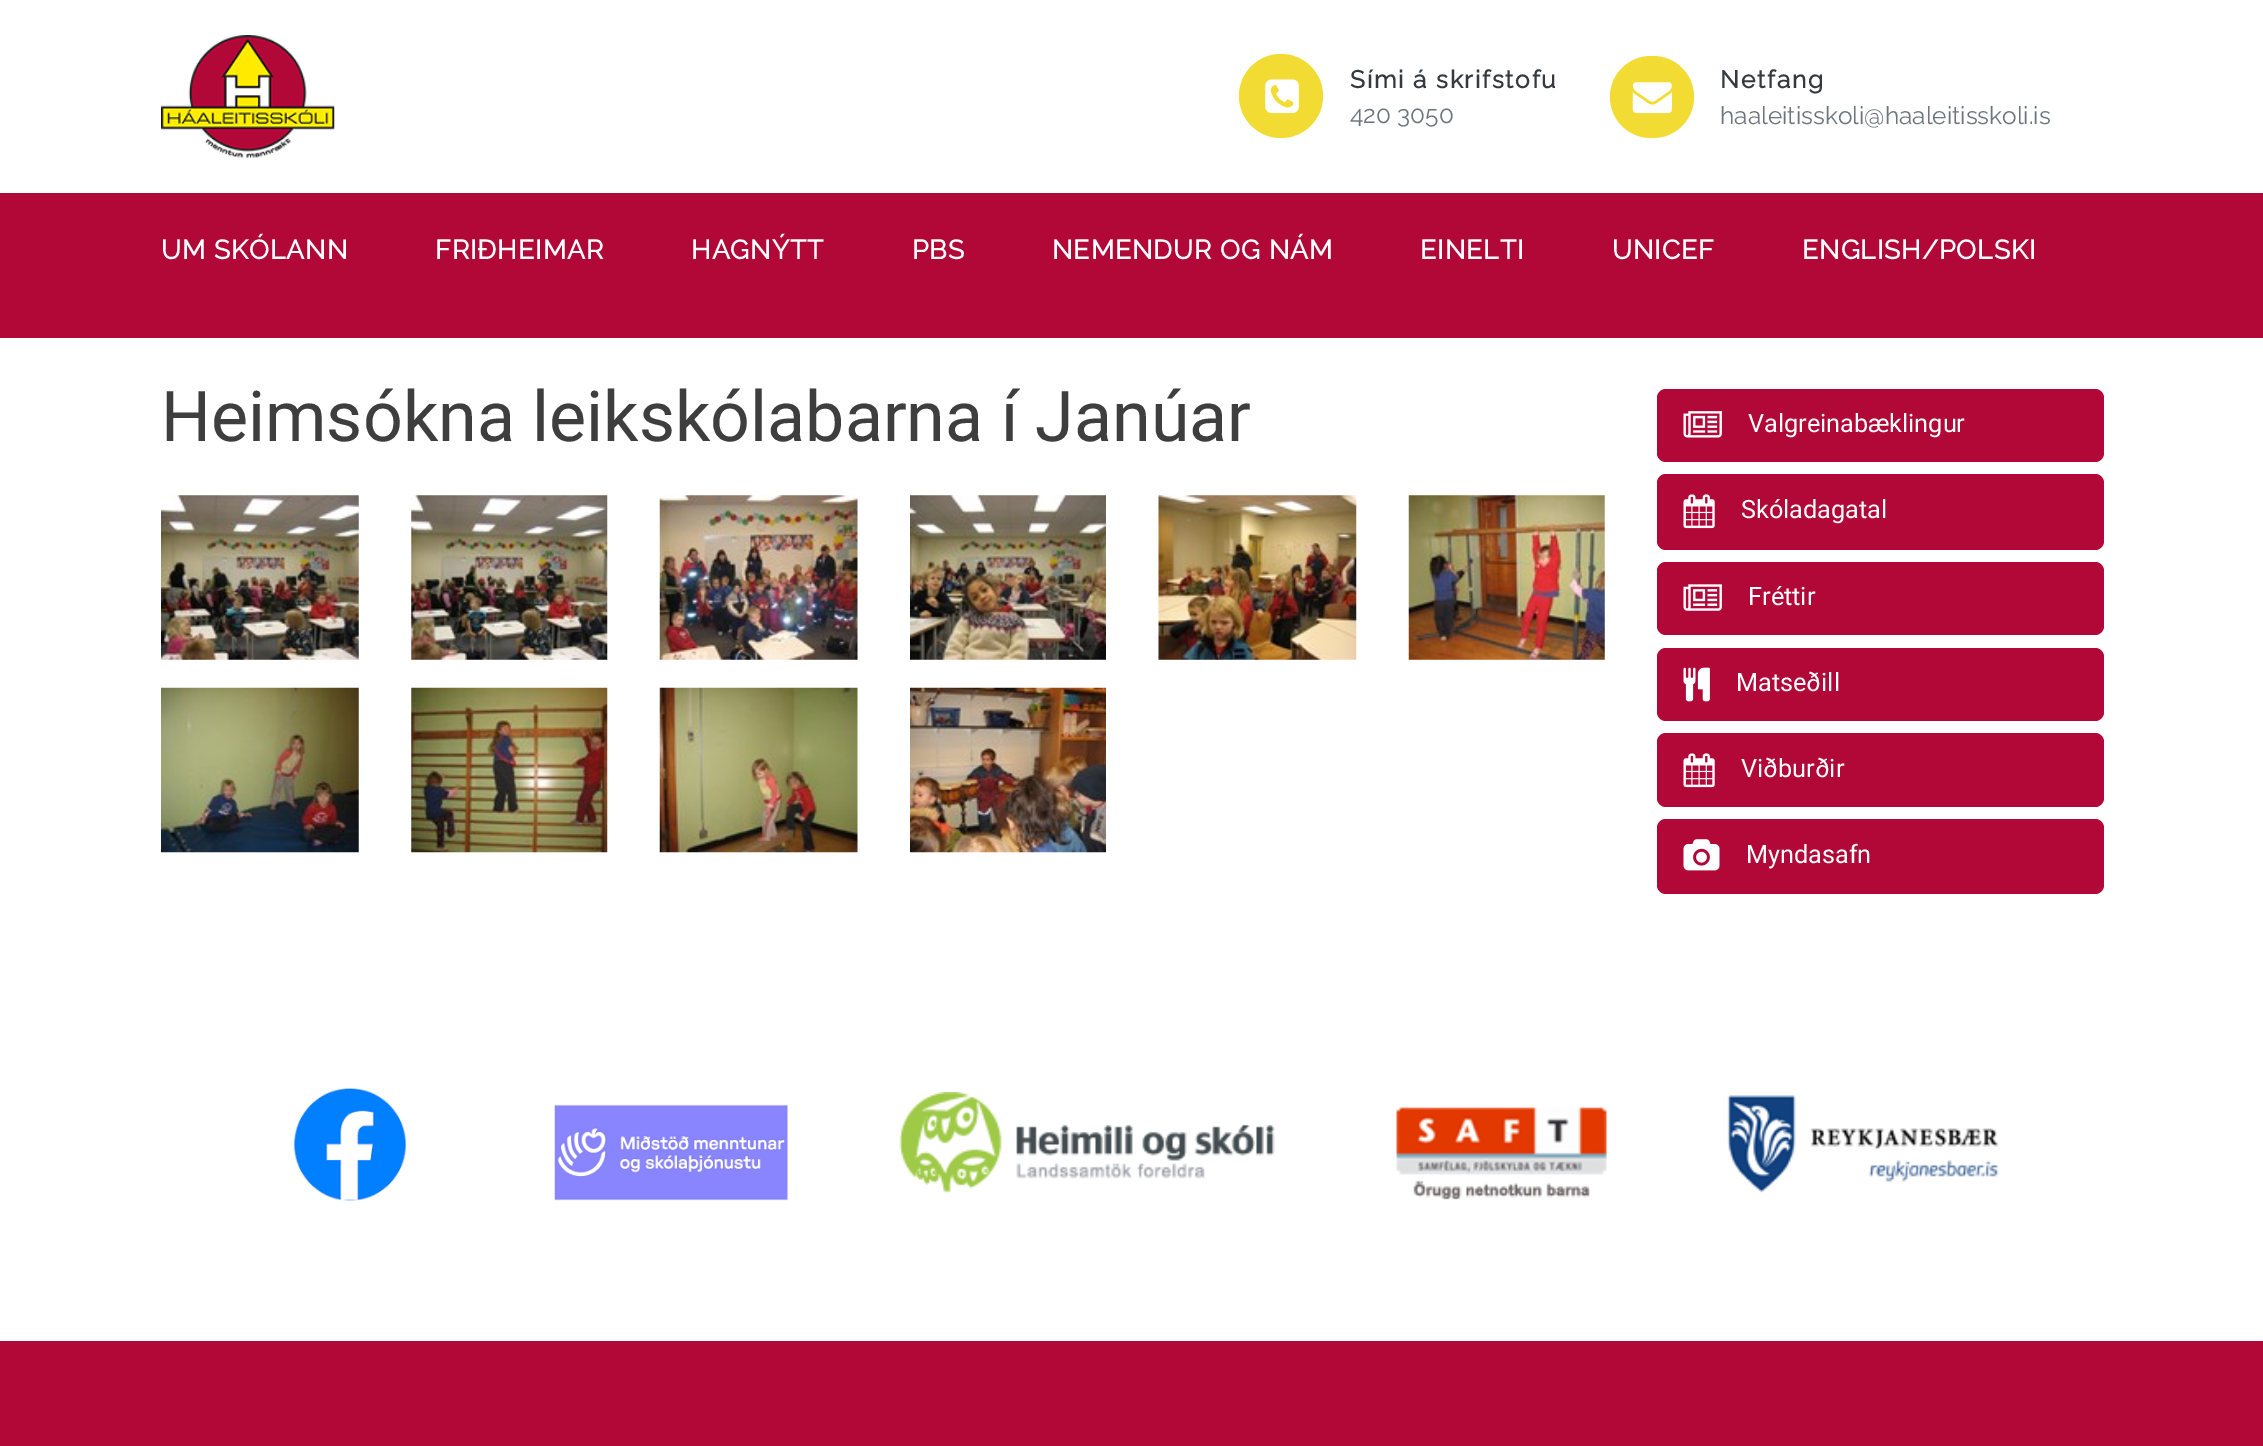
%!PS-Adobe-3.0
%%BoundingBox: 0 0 2263 1446
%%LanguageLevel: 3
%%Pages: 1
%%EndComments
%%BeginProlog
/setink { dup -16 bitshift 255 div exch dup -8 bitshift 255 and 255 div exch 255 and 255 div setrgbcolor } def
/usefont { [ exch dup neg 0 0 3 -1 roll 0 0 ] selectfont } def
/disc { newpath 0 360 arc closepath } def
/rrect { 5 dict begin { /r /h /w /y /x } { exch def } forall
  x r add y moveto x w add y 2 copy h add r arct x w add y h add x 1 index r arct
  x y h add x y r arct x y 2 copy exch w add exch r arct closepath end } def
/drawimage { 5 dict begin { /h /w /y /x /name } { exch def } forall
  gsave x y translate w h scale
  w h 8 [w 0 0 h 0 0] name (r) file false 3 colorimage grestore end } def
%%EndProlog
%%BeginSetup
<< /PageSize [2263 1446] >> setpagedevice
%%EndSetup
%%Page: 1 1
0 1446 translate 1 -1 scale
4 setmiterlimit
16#FFFFFF setink
0 0 2263 1446 rectfill
(img1.raw) 161 35 174 123 drawimage
16#F2DB33 setink
1281 96 42 disc fill
(img2.raw) 1265 79 34 35 drawimage
/Raleway-Bold 24.5 usefont
16#343A40 setink
1350 88 moveto 1.75 0 (Sími á skrifstofu) ashow
/Raleway-Thin 24.5 usefont
16#6C757D setink
1350 123 moveto (420 3050) show
16#F2DB33 setink
1610 56 84 82 41 rrect fill
(img3.raw) 1632 82 40 32 drawimage
/Raleway-Bold 24.5 usefont
16#343A40 setink
1720 88 moveto 1.75 0 (Netfang) ashow
/Raleway-Thin 24.5 usefont
16#6C757D setink
1720 124 moveto (haaleitisskoli@haaleitisskoli.is) show
16#B20838 setink
0 193 2263 145 rectfill
/Raleway-Bold 26.6 usefont
16#FFFFFF setink
161 259 moveto 0.9 0 (UM SKÓLANN) ashow
435 259 moveto 0.9 0 (FRIÐHEIMAR) ashow
691 259 moveto 0.9 0 (HAGNÝTT) ashow
912 259 moveto 0.9 0 (PBS) ashow
1052 259 moveto 0.9 0 (NEMENDUR OG NÁM) ashow
1420 259 moveto 0.9 0 (EINELTI) ashow
1612 259 moveto 0.9 0 (UNICEF) ashow
1802 259 moveto 0.9 0 (ENGLISH/POLSKI) ashow
/Roboto-Regular 70 usefont
16#3E3E3E setink
161 441 moveto (Heimsókna leikskólabarna í Janúar) show
(img4.raw) 161 495 198 165 drawimage
(img5.raw) 411 495 197 165 drawimage
(img6.raw) 659 495 199 165 drawimage
(img7.raw) 910 495 196 165 drawimage
(img8.raw) 1158 495 199 165 drawimage
(img9.raw) 1408 495 197 165 drawimage
(img10.raw) 161 687 198 166 drawimage
(img11.raw) 411 687 197 166 drawimage
(img12.raw) 659 687 199 166 drawimage
(img13.raw) 910 687 196 166 drawimage
16#B20838 setink
1657 389 447 73 9 rrect fill
(img14.raw) 1683 411 39 27 drawimage
/Roboto-Regular 25.25 usefont
16#FFFFFF setink
1748 432 moveto (Valgreinabæklingur) show
16#B20838 setink
1657 474 447 76 9 rrect fill
(img15.raw) 1683 494 32 35 drawimage
16#FFFFFF setink
1741 518 moveto (Skóladagatal) show
16#B20838 setink
1657 562 447 73 9 rrect fill
(img16.raw) 1683 584 39 27 drawimage
16#FFFFFF setink
1748 605 moveto (Fréttir) show
16#B20838 setink
1657 648 447 73 9 rrect fill
(img17.raw) 1683 667 27 35 drawimage
16#FFFFFF setink
1736 691 moveto (Matseðill) show
16#B20838 setink
1657 733 447 74 9 rrect fill
(img15.raw) 1683 753 32 35 drawimage
16#FFFFFF setink
1741 777 moveto (Viðburðir) show
16#B20838 setink
1657 819 447 75 9 rrect fill
(img18.raw) 1683 839 37 32 drawimage
16#FFFFFF setink
1746 863 moveto (Myndasafn) show
(img19.raw) 293 1088 114 113 drawimage
(img20.raw) 554 1104 234 97 drawimage
(img21.raw) 899 1092 376 101 drawimage
(img22.raw) 1396 1107 211 93 drawimage
(img23.raw) 1727 1095 272 98 drawimage
16#B20838 setink
0 1341 2263 105 rectfill
showpage
%%EOF
